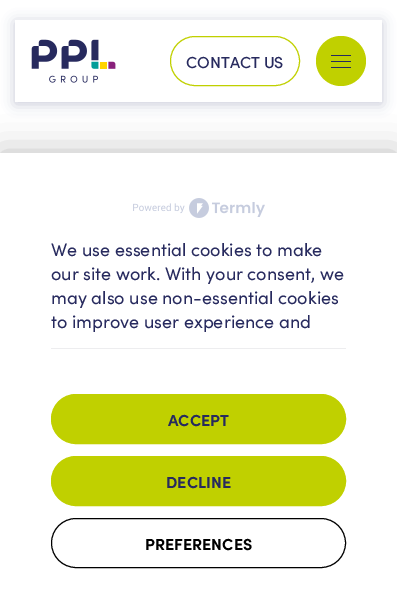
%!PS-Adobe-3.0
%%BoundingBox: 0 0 397 613
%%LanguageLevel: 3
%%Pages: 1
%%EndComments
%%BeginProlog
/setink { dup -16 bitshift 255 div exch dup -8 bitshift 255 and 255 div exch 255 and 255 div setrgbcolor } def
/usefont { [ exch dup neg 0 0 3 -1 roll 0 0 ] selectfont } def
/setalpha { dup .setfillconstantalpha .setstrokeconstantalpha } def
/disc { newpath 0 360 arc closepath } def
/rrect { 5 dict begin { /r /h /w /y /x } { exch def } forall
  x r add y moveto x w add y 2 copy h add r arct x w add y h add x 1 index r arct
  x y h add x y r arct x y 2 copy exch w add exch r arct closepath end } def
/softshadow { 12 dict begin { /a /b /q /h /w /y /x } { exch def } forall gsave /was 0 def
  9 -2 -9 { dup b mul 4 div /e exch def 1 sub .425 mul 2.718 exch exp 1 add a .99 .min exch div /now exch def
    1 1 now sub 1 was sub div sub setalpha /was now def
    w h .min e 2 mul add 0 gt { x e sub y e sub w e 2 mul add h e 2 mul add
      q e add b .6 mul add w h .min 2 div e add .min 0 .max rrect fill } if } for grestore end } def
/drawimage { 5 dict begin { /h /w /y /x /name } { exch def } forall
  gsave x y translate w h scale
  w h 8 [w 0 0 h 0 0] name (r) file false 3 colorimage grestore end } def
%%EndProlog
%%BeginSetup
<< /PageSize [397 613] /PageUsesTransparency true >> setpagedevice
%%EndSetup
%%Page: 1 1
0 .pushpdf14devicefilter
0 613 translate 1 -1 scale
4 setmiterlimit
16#FFFFFF setink
0 0 397 613 rectfill
gsave
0 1 moveto 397 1 lineto 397 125 lineto 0 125 lineto closepath 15 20 moveto 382 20 lineto 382 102 lineto 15 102 lineto closepath eoclip newpath
16#272A5E setink
15 22 367 82 0 6.5 0.25 softshadow
grestore
(img1.raw) 31 39 85 44 drawimage
16#C0D000 setink
170.5 36.5 129 49 24.5 rrect stroke
/Sofia-Medium 16 usefont
16#272A5E setink
186 68 moveto (CONTACT US) show
16#C0D000 setink
341 61 25 disc fill
[
    [331 55 20 1 16#272A5E]
    [331 61 20 1 16#272A5E]
    [331 67 20 1 16#272A5E]
] { aload pop setink rectfill } forall
16#000000 setink
0 153 397 460 0 17.5 0.25 softshadow
16#FFFFFF setink
0 153 397 460 rectfill
(img2.raw) 133 198 132 20 drawimage
/Sofia-Regular 18 usefont
16#272A5E setink
[
    [(We use essential cookies to make) 51 256]
    [(our site work. With your consent, we) 51 280]
    [(may also use non-essential cookies) 51 304]
    [(to improve user experience and) 51 328]
] { aload pop moveto show } forall
16#EDEDEF setink
51 348 295 1 rectfill
16#C0D000 setink
51.5 394.5 294 49 24.5 rrect gsave fill grestore
stroke
/Sofia-Bold 16 usefont
16#272A5E setink
168 426 moveto (ACCEPT) show
16#C0D000 setink
51.5 456.5 294 49 24.5 rrect gsave fill grestore
stroke
16#272A5E setink
166 488 moveto (DECLINE) show
16#000000 setink
51.5 518.5 294 49 24.5 rrect stroke
145 550 moveto (PREFERENCES) show
.poppdf14devicefilter showpage
%%EOF
